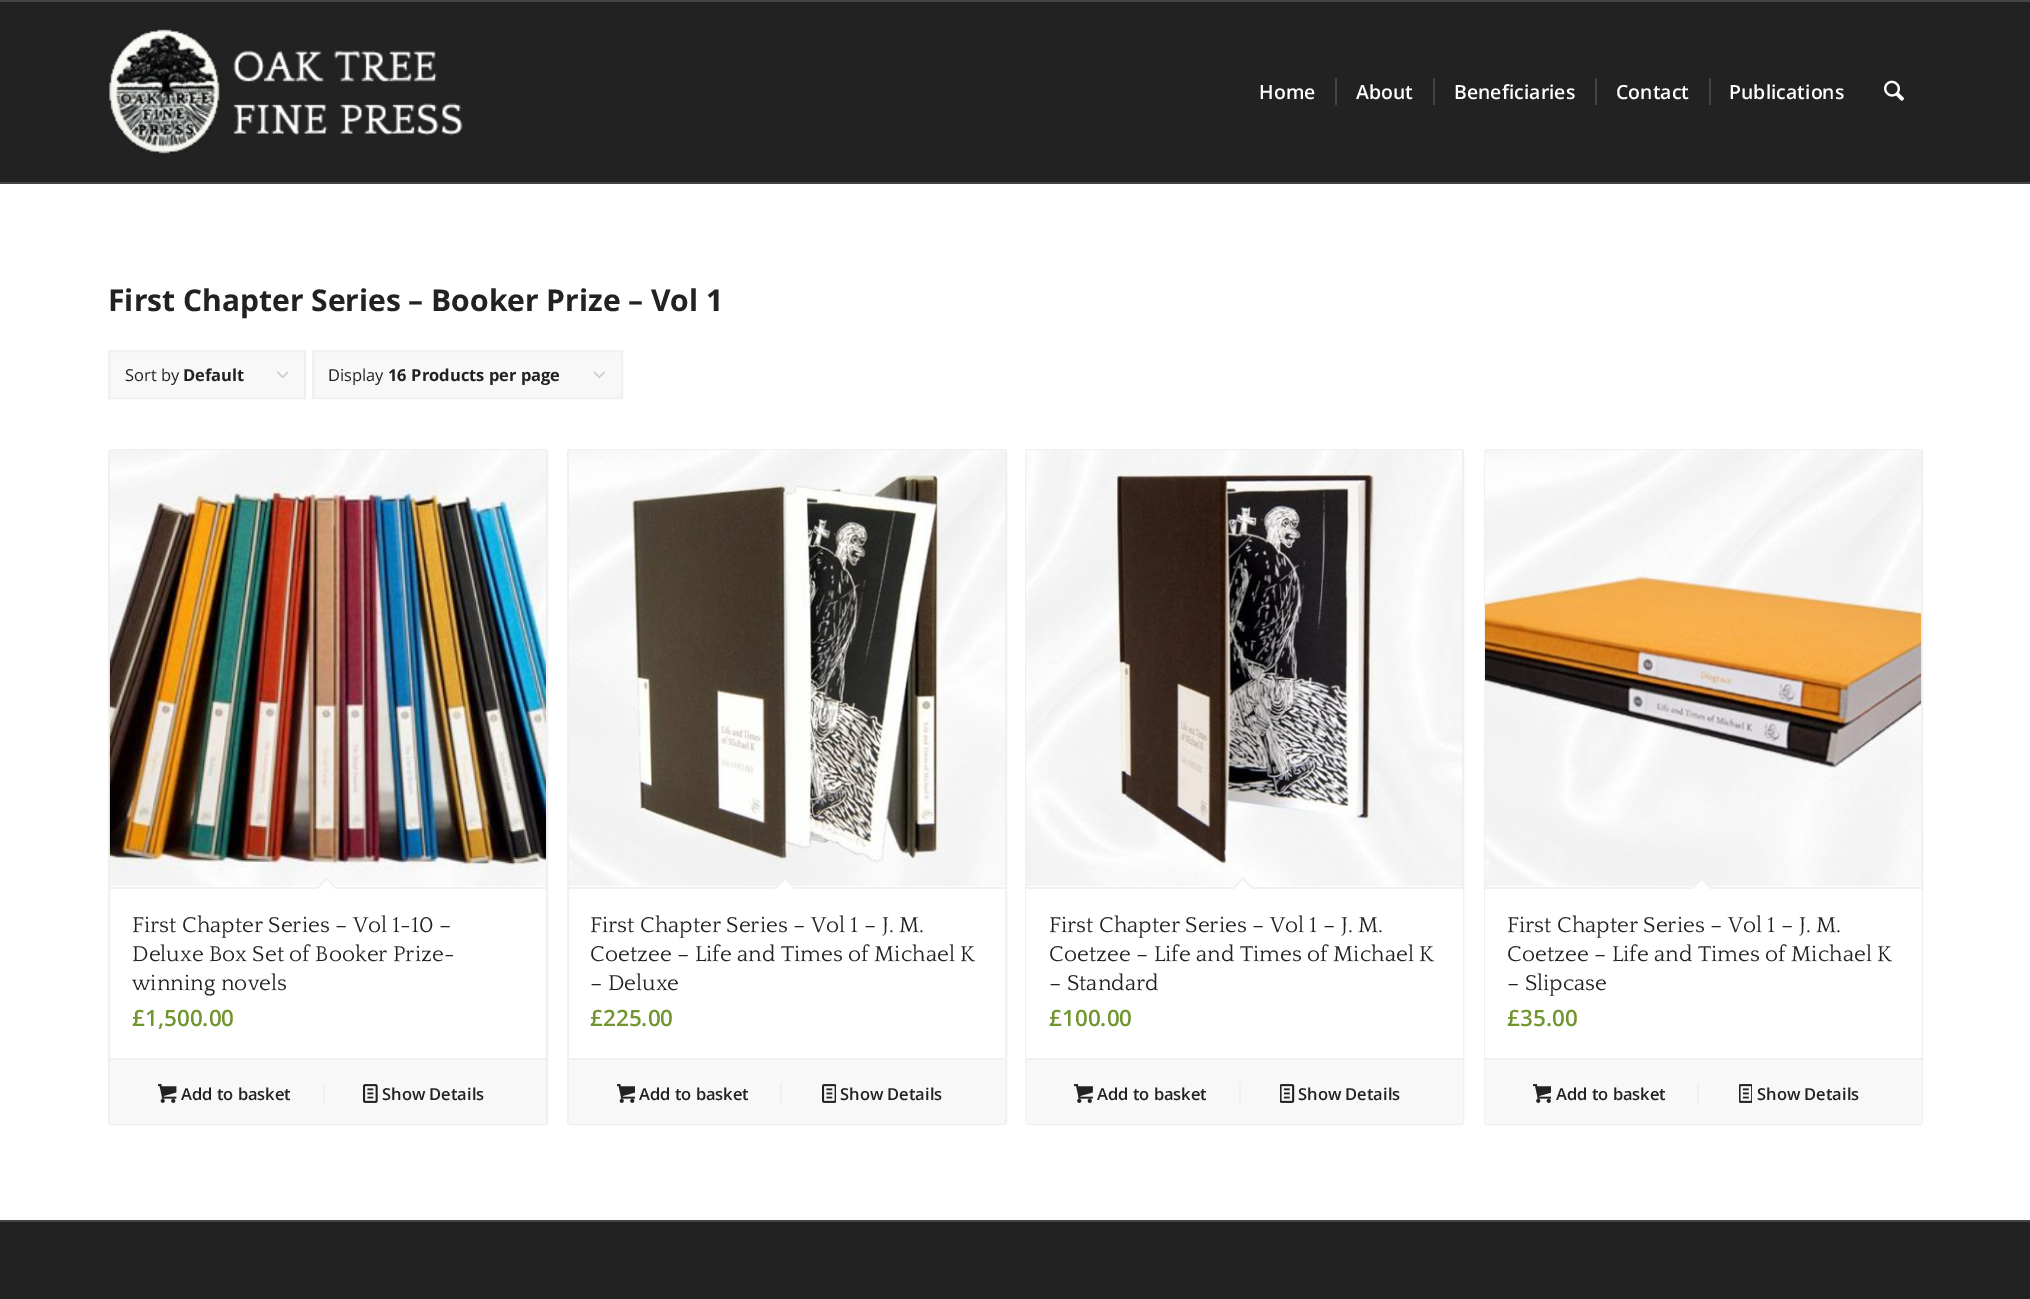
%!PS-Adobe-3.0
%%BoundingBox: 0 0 2030 1299
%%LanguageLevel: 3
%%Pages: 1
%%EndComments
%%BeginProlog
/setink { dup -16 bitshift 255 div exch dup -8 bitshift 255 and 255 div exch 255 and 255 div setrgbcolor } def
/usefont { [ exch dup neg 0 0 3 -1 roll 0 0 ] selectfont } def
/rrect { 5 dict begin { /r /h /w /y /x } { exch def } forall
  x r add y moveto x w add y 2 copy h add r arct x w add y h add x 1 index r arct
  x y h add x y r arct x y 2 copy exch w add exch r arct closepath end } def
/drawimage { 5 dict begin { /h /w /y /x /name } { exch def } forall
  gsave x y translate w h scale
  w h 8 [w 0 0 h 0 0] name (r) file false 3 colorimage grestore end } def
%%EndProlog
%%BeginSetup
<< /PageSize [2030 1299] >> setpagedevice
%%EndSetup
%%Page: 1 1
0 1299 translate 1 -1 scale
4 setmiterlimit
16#222222 setink
0 0 2030 1299 rectfill
16#444444 setink
0 0 2030 2 rectfill
0 182 2030 2 rectfill
(img1.raw) 109 29 354 125 drawimage
/OpenSans-SemiBold 19.5 usefont
16#FFFFFF setink
1259 99 moveto (Home) show
1356 99 moveto (About) show
16#444444 setink
1335 78 2 27 rectfill
16#FFFFFF setink
1454 99 moveto (Beneficiaries) show
16#444444 setink
1433 78 2 27 rectfill
16#FFFFFF setink
1616 99 moveto (Contact) show
16#444444 setink
1595 78 2 27 rectfill
16#FFFFFF setink
1729 99 moveto (Publications) show
16#444444 setink
1709 78 2 27 rectfill
(img2.raw) 1884 80 20 21 drawimage
16#FFFFFF setink
0 184 2030 1036 rectfill
/OpenSans-Bold 30 usefont
16#222222 setink
108 311 moveto (First Chapter Series – Booker Prize – Vol 1) show
16#F8F8F8 setink
110 352 194 45 rectfill
(img3.raw) 277 371 12 8 drawimage
16#F0F0F0 setink
2 setlinewidth
109 351 196 47 rectstroke
/OpenSans-Regular 16.5 usefont
16#222222 setink
125 381 moveto (Sort by) show
/OpenSans-Bold 16.5 usefont
183 381 moveto (Default) show
16#F8F8F8 setink
314 352 307 45 rectfill
(img4.raw) 593 371 12 8 drawimage
16#F0F0F0 setink
313 351 309 47 rectstroke
/OpenSans-Regular 16.5 usefont
16#222222 setink
328 381 moveto (Display) show
/OpenSans-Bold 16.5 usefont
388 381 moveto (16 Products per page) show
16#F0F0F0 setink
109 450 438 674 2 rrect stroke
(img5.raw) 109 450 437 436 drawimage
110 887 436 2 rectfill
16#FFFFFF setink
326.5 877.5 moveto 337 888.5 lineto 326.5 899 lineto 316 888.5 lineto closepath fill
16#F0F0F0 setink
326.5 877.5 moveto 337 888.5 lineto 336 889.5 lineto 325.5 878.5 lineto closepath fill
326.5 877.5 moveto 327.5 878.5 lineto 317 889.5 lineto 316 888.5 lineto closepath fill
/Quattrocento-Regular 22.5 usefont
16#222222 setink
[
    [(First Chapter Series – Vol 1-10 –) 132 932]
    [(Deluxe Box Set of Booker Prize-) 132 961]
    [(winning novels) 132 990]
] { aload pop moveto show } forall
/OpenSans-SemiBold 22.5 usefont
16#719630 setink
132 1026 moveto (£1,500.00) show
16#F8F8F8 setink
110 1058 moveto 546 1058 lineto 546 1122.5 lineto 546 1123.5 545.5 1124 544.5 1124 curveto 111.5 1124 lineto 110.5 1124 110 1123.5 110 1122.5 curveto closepath fill
16#F0F0F0 setink
110 1058 436 2 rectfill
(img6.raw) 158 1084 19 19 drawimage
/OpenSans-SemiBold 16.5 usefont
16#222222 setink
181 1100 moveto (Add to basket) show
16#F0F0F0 setink
323 1083 2 21 rectfill
(img7.raw) 363 1084 15 19 drawimage
16#222222 setink
382 1100 moveto (Show Details) show
16#F0F0F0 setink
568 450 438 674 2 rrect stroke
(img8.raw) 569 450 436 436 drawimage
569 887 436 2 rectfill
16#FFFFFF setink
785 877.5 moveto 795.5 888.5 lineto 785 899 lineto 774 888.5 lineto closepath fill
16#F0F0F0 setink
785 877.5 moveto 795.5 888.5 lineto 794.5 889.5 lineto 784 878.5 lineto closepath fill
785 877.5 moveto 786 878.5 lineto 775.5 889.5 lineto 774 888.5 lineto closepath fill
/Quattrocento-Regular 22.5 usefont
16#222222 setink
[
    [(First Chapter Series – Vol 1 – J. M.) 590 932]
    [(Coetzee – Life and Times of Michael K) 590 961]
    [(– Deluxe) 590 990]
] { aload pop moveto show } forall
/OpenSans-SemiBold 22.5 usefont
16#719630 setink
590 1026 moveto (£225.00) show
16#F8F8F8 setink
569 1058 moveto 1005 1058 lineto 1005 1122.5 lineto 1005 1123.5 1004.5 1124 1003.5 1124 curveto 570.5 1124 lineto 569.5 1124 569 1123.5 569 1122.5 curveto closepath fill
16#F0F0F0 setink
569 1058 436 2 rectfill
(img9.raw) 617 1084 18 19 drawimage
/OpenSans-SemiBold 16.5 usefont
16#222222 setink
639 1100 moveto (Add to basket) show
16#F0F0F0 setink
780 1083 2 21 rectfill
(img10.raw) 822 1084 14 19 drawimage
16#222222 setink
840 1100 moveto (Show Details) show
16#F0F0F0 setink
1026 450 437 674 2 rrect stroke
(img11.raw) 1026 450 436 436 drawimage
16#FFFFFF setink
1026 887 moveto 1463 887 lineto 1463 1056.5 lineto 1463 1057.5 1462.5 1058 1461.5 1058 curveto 1027.5 1058 lineto 1026.5 1058 1026 1057.5 1026 1056.5 curveto closepath fill
16#F0F0F0 setink
1026 887 437 2 rectfill
16#FFFFFF setink
1243 877.5 moveto 1253.5 888.5 lineto 1243 899 lineto 1232.5 888.5 lineto closepath fill
16#F0F0F0 setink
1243 877.5 moveto 1253.5 888.5 lineto 1252.5 889.5 lineto 1242 878.5 lineto closepath fill
1243 877.5 moveto 1244 878.5 lineto 1233.5 889.5 lineto 1232.5 888.5 lineto closepath fill
/Quattrocento-Regular 22.5 usefont
16#222222 setink
[
    [(First Chapter Series – Vol 1 – J. M.) 1049 932]
    [(Coetzee – Life and Times of Michael K) 1049 961]
    [(– Standard) 1049 990]
] { aload pop moveto show } forall
/OpenSans-SemiBold 22.5 usefont
16#719630 setink
1049 1026 moveto (£100.00) show
16#F8F8F8 setink
1026 1058 moveto 1463 1058 lineto 1463 1122.5 lineto 1463 1123.5 1462.5 1124 1461.5 1124 curveto 1027.5 1124 lineto 1026.5 1124 1026 1123.5 1026 1122.5 curveto closepath fill
16#F0F0F0 setink
1026 1058 437 2 rectfill
(img12.raw) 1074 1084 19 19 drawimage
/OpenSans-SemiBold 16.5 usefont
16#222222 setink
1097 1100 moveto (Add to basket) show
16#F0F0F0 setink
1239 1083 2 21 rectfill
(img13.raw) 1280 1084 15 19 drawimage
16#222222 setink
1298 1100 moveto (Show Details) show
16#F0F0F0 setink
1485 450 437 674 2 rrect stroke
(img14.raw) 1485 450 437 436 drawimage
16#FFFFFF setink
1485 887 moveto 1922 887 lineto 1922 1056.5 lineto 1922 1057.5 1921.5 1058 1920.5 1058 curveto 1486.5 1058 lineto 1485.5 1058 1485 1057.5 1485 1056.5 curveto closepath fill
16#F0F0F0 setink
1485 887 437 2 rectfill
16#FFFFFF setink
1701.5 877.5 moveto 1712 888.5 lineto 1701.5 899 lineto 1691 888.5 lineto closepath fill
16#F0F0F0 setink
1701.5 877.5 moveto 1712 888.5 lineto 1711 889.5 lineto 1700.5 878.5 lineto closepath fill
1701.5 877.5 moveto 1702.5 878.5 lineto 1692 889.5 lineto 1691 888.5 lineto closepath fill
/Quattrocento-Regular 22.5 usefont
16#222222 setink
[
    [(First Chapter Series – Vol 1 – J. M.) 1507 932]
    [(Coetzee – Life and Times of Michael K) 1507 961]
    [(– Slipcase) 1507 990]
] { aload pop moveto show } forall
/OpenSans-SemiBold 22.5 usefont
16#719630 setink
1507 1026 moveto (£35.00) show
16#F8F8F8 setink
1485 1058 moveto 1922 1058 lineto 1922 1122.5 lineto 1922 1123.5 1921.5 1124 1920.5 1124 curveto 1486.5 1124 lineto 1485.5 1124 1485 1123.5 1485 1122.5 curveto closepath fill
16#F0F0F0 setink
1485 1058 437 2 rectfill
(img15.raw) 1533 1084 18 19 drawimage
/OpenSans-SemiBold 16.5 usefont
16#222222 setink
1556 1100 moveto (Add to basket) show
16#F0F0F0 setink
1697 1083 2 21 rectfill
(img16.raw) 1739 1084 13 19 drawimage
16#222222 setink
1757 1100 moveto (Show Details) show
16#444444 setink
0 1220 2030 2 rectfill
showpage
%%EOF
